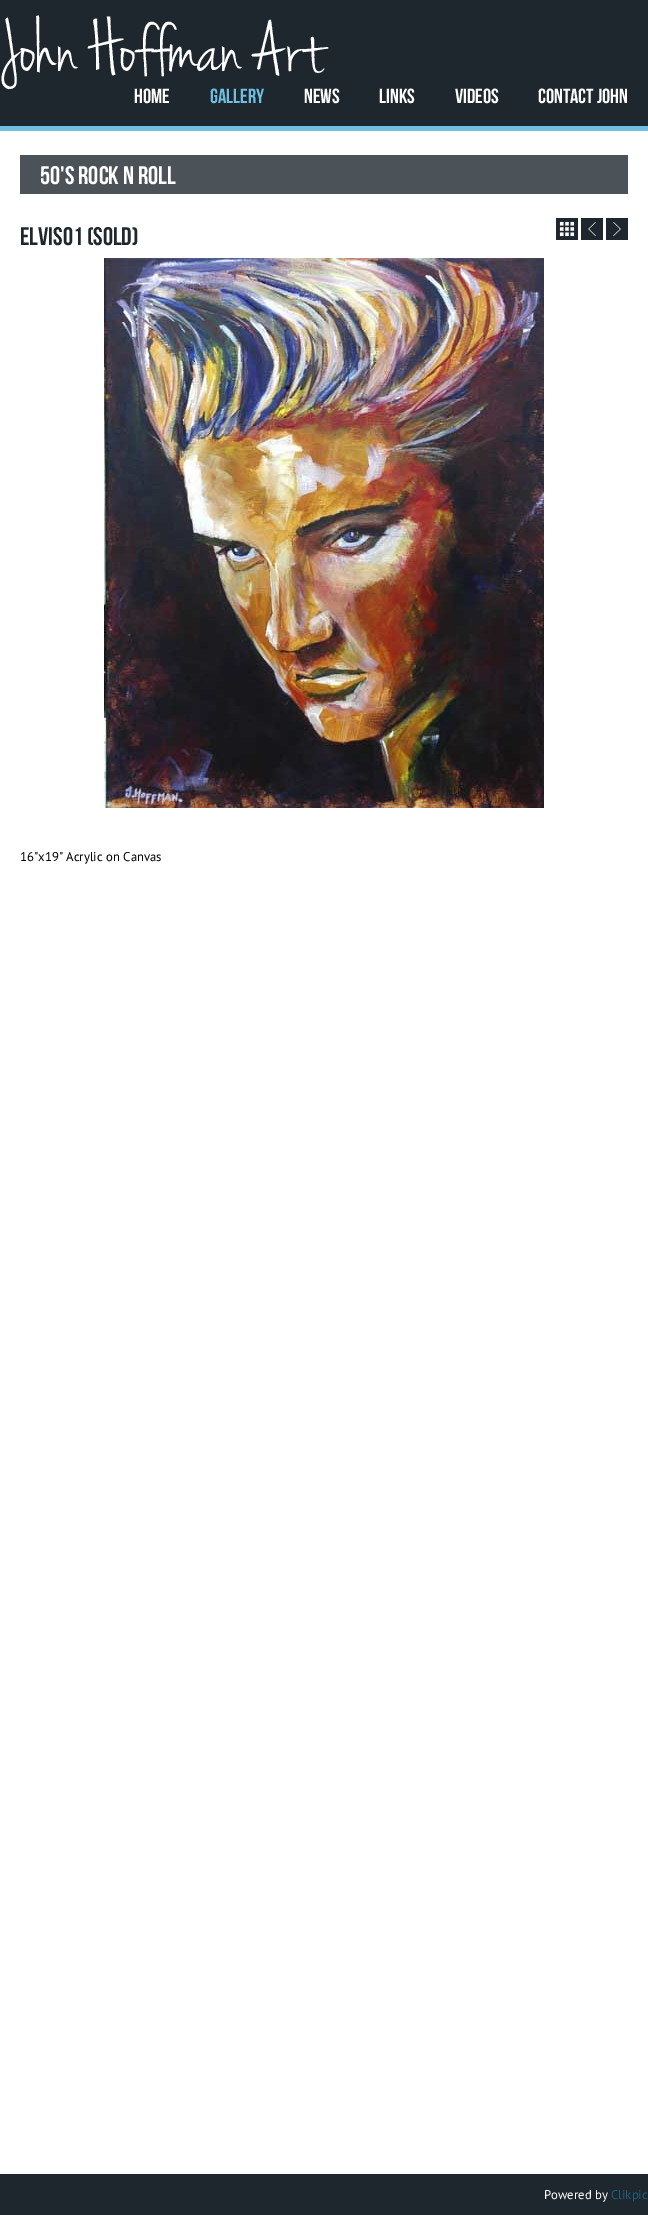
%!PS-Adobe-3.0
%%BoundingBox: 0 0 648 2215
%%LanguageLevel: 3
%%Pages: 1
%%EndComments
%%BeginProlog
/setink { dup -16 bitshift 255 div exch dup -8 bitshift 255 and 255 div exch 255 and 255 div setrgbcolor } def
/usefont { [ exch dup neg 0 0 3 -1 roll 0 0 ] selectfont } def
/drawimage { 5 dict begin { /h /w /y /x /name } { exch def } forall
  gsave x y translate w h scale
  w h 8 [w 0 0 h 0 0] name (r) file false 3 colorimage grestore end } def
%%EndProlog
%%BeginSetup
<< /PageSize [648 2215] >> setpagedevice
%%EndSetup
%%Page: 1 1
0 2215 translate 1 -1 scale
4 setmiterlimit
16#1E272E setink
0 0 648 2215 rectfill
16#70BFE0 setink
0 126 648 5 rectfill
/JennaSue-Regular 77 usefont
16#FFFFFF setink
0 71 moveto (John Hoffman Art) show
/BebasNeue-Regular 20.5 usefont
134 103 moveto (HOME) show
16#70BFE0 setink
210 103 moveto (GALLERY) show
16#FFFFFF setink
[
    [(NEWS) 304 103]
    [(LINKS) 379 103]
    [(VIDEOS) 455 103]
    [(CONTACT JOHN) 538 103]
] { aload pop moveto show } forall
0 131 648 2043 rectfill
16#4B5258 setink
20 155 608 39 rectfill
/BebasNeue-Regular 25.5 usefont
16#FFFFFF setink
40 184 moveto (50's Rock N Roll) show
16#1E272E setink
20 245 moveto (Elvis01 \(sold\)) show
556 218 22 22 rectfill
(img1.raw) 559 221 16 16 drawimage
581 218 22 22 rectfill
(img2.raw) 588 222 8 14 drawimage
606 218 22 22 rectfill
(img3.raw) 613 222 8 14 drawimage
(img4.raw) 104 258 440 550 drawimage
/PTSans-Regular 12.75 usefont
16#000000 setink
20 861 moveto (16"x19" Acrylic on Canvas) show
16#FFFFFF setink
544 2199 moveto (Powered by) show
16#1C607D setink
611 2199 moveto (Clikpic) show
showpage
%%EOF
